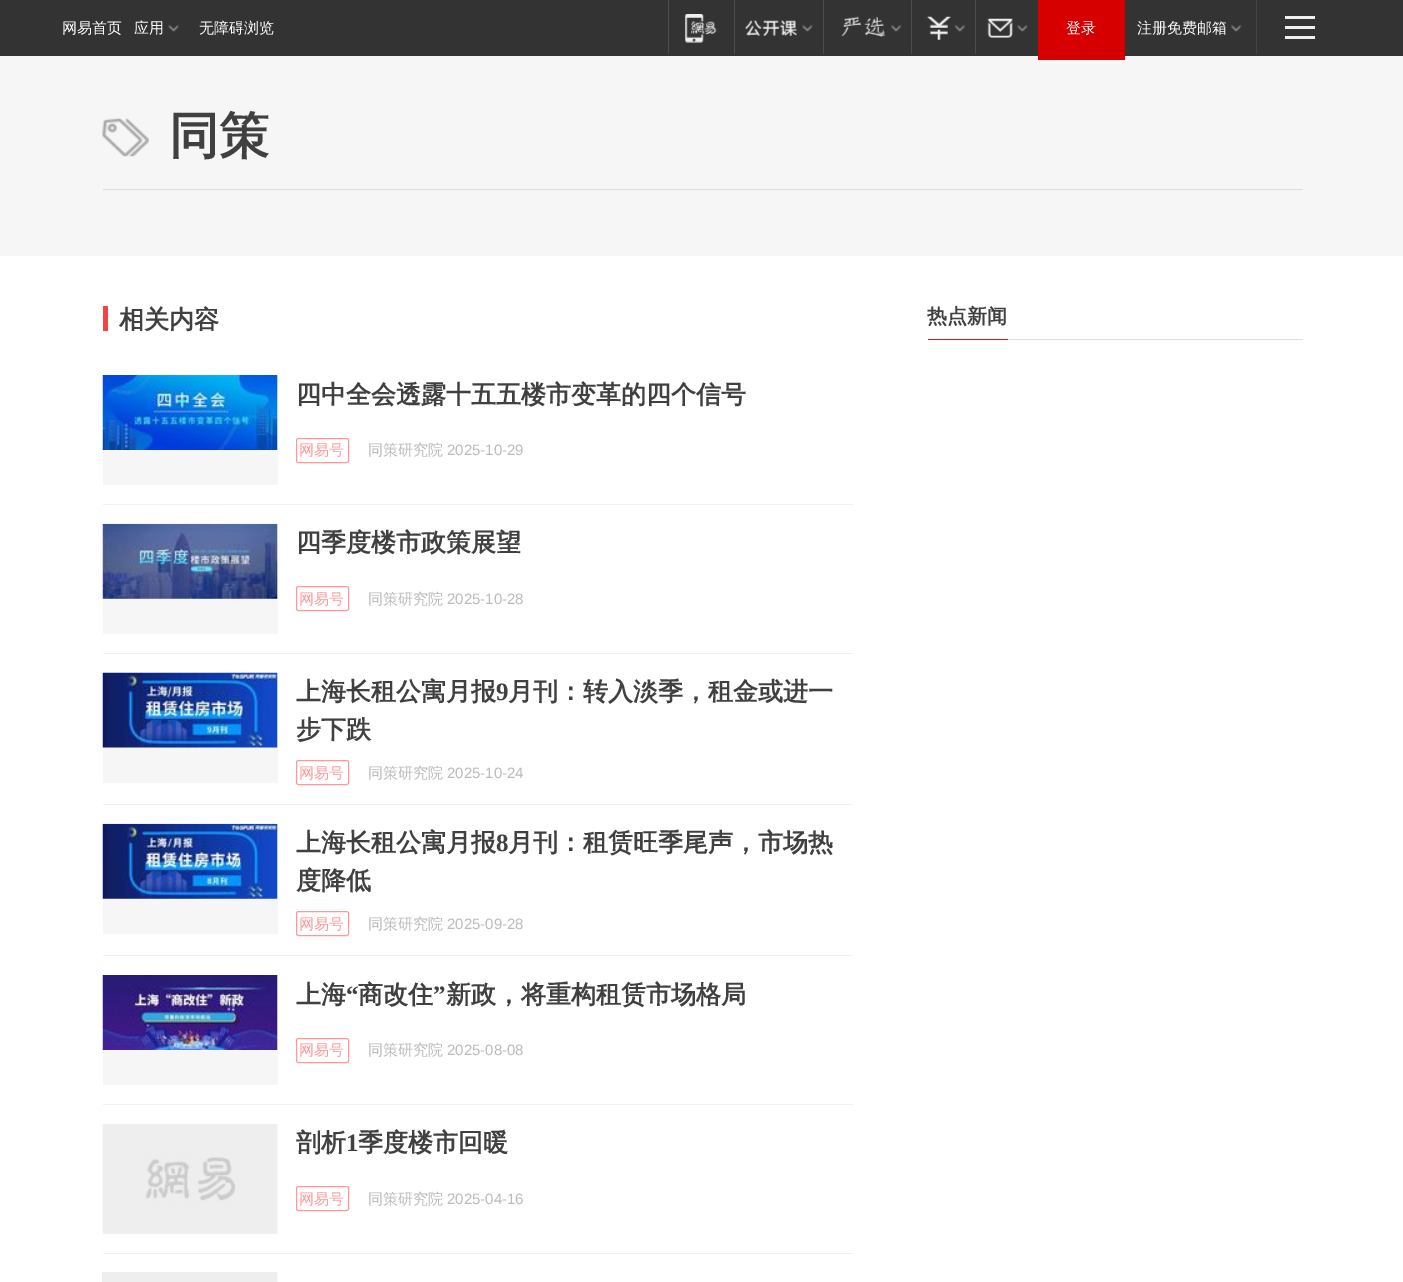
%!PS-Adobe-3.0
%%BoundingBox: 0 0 1403 1282
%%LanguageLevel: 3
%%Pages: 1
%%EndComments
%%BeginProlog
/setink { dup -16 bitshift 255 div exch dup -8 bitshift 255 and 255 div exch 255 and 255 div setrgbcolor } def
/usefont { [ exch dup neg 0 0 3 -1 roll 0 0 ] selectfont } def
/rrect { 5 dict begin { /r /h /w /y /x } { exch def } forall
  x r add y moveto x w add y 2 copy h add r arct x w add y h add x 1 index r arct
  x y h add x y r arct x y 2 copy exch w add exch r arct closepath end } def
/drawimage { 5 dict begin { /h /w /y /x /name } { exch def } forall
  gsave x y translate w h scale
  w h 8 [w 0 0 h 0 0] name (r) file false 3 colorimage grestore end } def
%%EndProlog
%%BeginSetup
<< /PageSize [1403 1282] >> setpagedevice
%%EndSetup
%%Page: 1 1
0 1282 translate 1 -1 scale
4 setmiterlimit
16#FFFFFF setink
0 0 1403 1282 rectfill
16#333333 setink
0 0 1403 56 rectfill
/WenQuanYiZenHei-Medium 15 usefont
16#FFFFFF setink
62 33 moveto (网易首页) show
134 33 moveto (应用) show
(img1.raw) 168 24 11 8 drawimage
199 33 moveto (无障碍浏览) show
16#4D4D4D setink
668 0 1 54 rectfill
(img2.raw) 685 14 32 29 drawimage
734 0 1 54 rectfill
(img3.raw) 745 20 52 16 drawimage
(img4.raw) 802 24 11 8 drawimage
823 0 1 54 rectfill
(img5.raw) 841 16 45 21 drawimage
(img6.raw) 891 24 11 8 drawimage
911 0 1 54 rectfill
(img7.raw) 926 16 25 24 drawimage
(img8.raw) 954 24 12 8 drawimage
975 0 1 54 rectfill
(img9.raw) 987 18 26 20 drawimage
(img10.raw) 1017 24 11 8 drawimage
16#F6F6F6 setink
0 56 1403 200 rectfill
16#D60000 setink
1038 0 87 60 rectfill
16#FFFFFF setink
1066 33 moveto (登录) show
1137 33 moveto (注册免费邮箱) show
(img6.raw) 1231 24 11 8 drawimage
[
    [1256 0 1 54 16#444444]
    [1285 16 30 3 16#EFEFEF]
    [1285 26 30 3 16#EFEFEF]
    [1285 36 30 3 16#EFEFEF]
] { aload pop setink rectfill } forall
(img11.raw) 102 118 47 39 drawimage
16#DDDDDD setink
103 189 1200 1 rectfill
/WenQuanYiZenHei-Bold 50 usefont
16#404040 setink
169 153 moveto (同策) show
16#F34540 setink
103 306 5 25 rectfill
/WenQuanYiZenHei-Bold 25 usefont
16#404040 setink
119 328 moveto (相关内容) show
16#F0F0F0 setink
103 504 750 1 rectfill
16#F6F6F6 setink
103 375 175 110 rectfill
(img12.raw) 102 375 176 75 drawimage
16#404040 setink
296 403 moveto (四中全会透露十五五楼市变革的四个信号) show
16#FF9999 setink
296.5 438.5 52 24 2 rrect stroke
/WenQuanYiZenHei-Medium 15 usefont
299 455 moveto (网易号) show
16#BBBBBB setink
368 455 moveto (同策研究院) show
/LiberationSans-Regular 15 usefont
447 455 moveto (2025-10-29) show
16#F0F0F0 setink
103 653 750 1 rectfill
16#F6F6F6 setink
103 524 175 110 rectfill
(img13.raw) 102 523 176 76 drawimage
/WenQuanYiZenHei-Bold 25 usefont
16#404040 setink
296 551 moveto (四季度楼市政策展望) show
16#FF9999 setink
296.5 586.5 52 24 2 rrect stroke
/WenQuanYiZenHei-Medium 15 usefont
299 604 moveto (网易号) show
16#BBBBBB setink
368 604 moveto (同策研究院) show
/LiberationSans-Regular 15 usefont
447 604 moveto (2025-10-28) show
16#F0F0F0 setink
103 804 750 1 rectfill
16#F6F6F6 setink
103 673 175 110 rectfill
(img14.raw) 102 672 176 76 drawimage
/WenQuanYiZenHei-Bold 25 usefont
16#404040 setink
296 700 moveto (上海长租公寓月报) show
/LiberationSerif-Bold 25 usefont
496 700 moveto (9) show
/WenQuanYiZenHei-Bold 25 usefont
508 700 moveto (月刊：转入淡季，租金或进一) show
296 738 moveto (步下跌) show
16#FF9999 setink
296.5 760.5 52 24 2 rrect stroke
/WenQuanYiZenHei-Medium 15 usefont
299 778 moveto (网易号) show
16#BBBBBB setink
368 778 moveto (同策研究院) show
/LiberationSans-Regular 15 usefont
447 778 moveto (2025-10-24) show
16#F0F0F0 setink
103 955 750 1 rectfill
16#F6F6F6 setink
103 824 175 110 rectfill
(img15.raw) 102 823 176 76 drawimage
/WenQuanYiZenHei-Bold 25 usefont
16#404040 setink
296 851 moveto (上海长租公寓月报) show
/LiberationSerif-Bold 25 usefont
496 851 moveto (8) show
/WenQuanYiZenHei-Bold 25 usefont
508 851 moveto (月刊：租赁旺季尾声，市场热) show
296 889 moveto (度降低) show
16#FF9999 setink
296.5 911.5 52 24 2 rrect stroke
/WenQuanYiZenHei-Medium 15 usefont
299 929 moveto (网易号) show
16#BBBBBB setink
368 929 moveto (同策研究院) show
/LiberationSans-Regular 15 usefont
447 929 moveto (2025-09-28) show
16#F0F0F0 setink
103 1104 750 1 rectfill
16#F6F6F6 setink
103 975 175 110 rectfill
(img16.raw) 102 975 176 75 drawimage
/WenQuanYiZenHei-Bold 25 usefont
16#404040 setink
296 1003 moveto (上海) show
/LiberationSerif-Bold 25 usefont
346 1003 moveto (“) show
/WenQuanYiZenHei-Bold 25 usefont
358 1003 moveto (商改住) show
/LiberationSerif-Bold 25 usefont
433 1003 moveto (”) show
/WenQuanYiZenHei-Bold 25 usefont
446 1003 moveto (新政，将重构租赁市场格局) show
16#FF9999 setink
296.5 1038.5 52 24 2 rrect stroke
/WenQuanYiZenHei-Medium 15 usefont
299 1055 moveto (网易号) show
16#BBBBBB setink
368 1055 moveto (同策研究院) show
/LiberationSans-Regular 15 usefont
447 1055 moveto (2025-08-08) show
16#F0F0F0 setink
103 1253 750 1 rectfill
16#F6F6F6 setink
103 1124 175 110 rectfill
(img17.raw) 102 1124 175 110 drawimage
/WenQuanYiZenHei-Bold 25 usefont
16#404040 setink
296 1151 moveto (剖析) show
/LiberationSerif-Bold 25 usefont
346 1151 moveto (1) show
/WenQuanYiZenHei-Bold 25 usefont
358 1151 moveto (季度楼市回暖) show
16#FF9999 setink
296.5 1186.5 52 24 2 rrect stroke
/WenQuanYiZenHei-Medium 15 usefont
299 1204 moveto (网易号) show
16#BBBBBB setink
368 1204 moveto (同策研究院) show
/LiberationSans-Regular 15 usefont
447 1204 moveto (2025-04-16) show
[
    [277 1273 1 9 16#F6F6F6]
    [102 1272 175 10 16#EEEEEE]
    [1008 339 295 1 16#DDDDDD]
] { aload pop setink rectfill } forall
/WenQuanYiZenHei-Bold 20 usefont
16#404040 setink
927 323 moveto (热点新闻) show
16#DB1011 setink
928 339 80 1 rectfill
showpage
%%EOF
